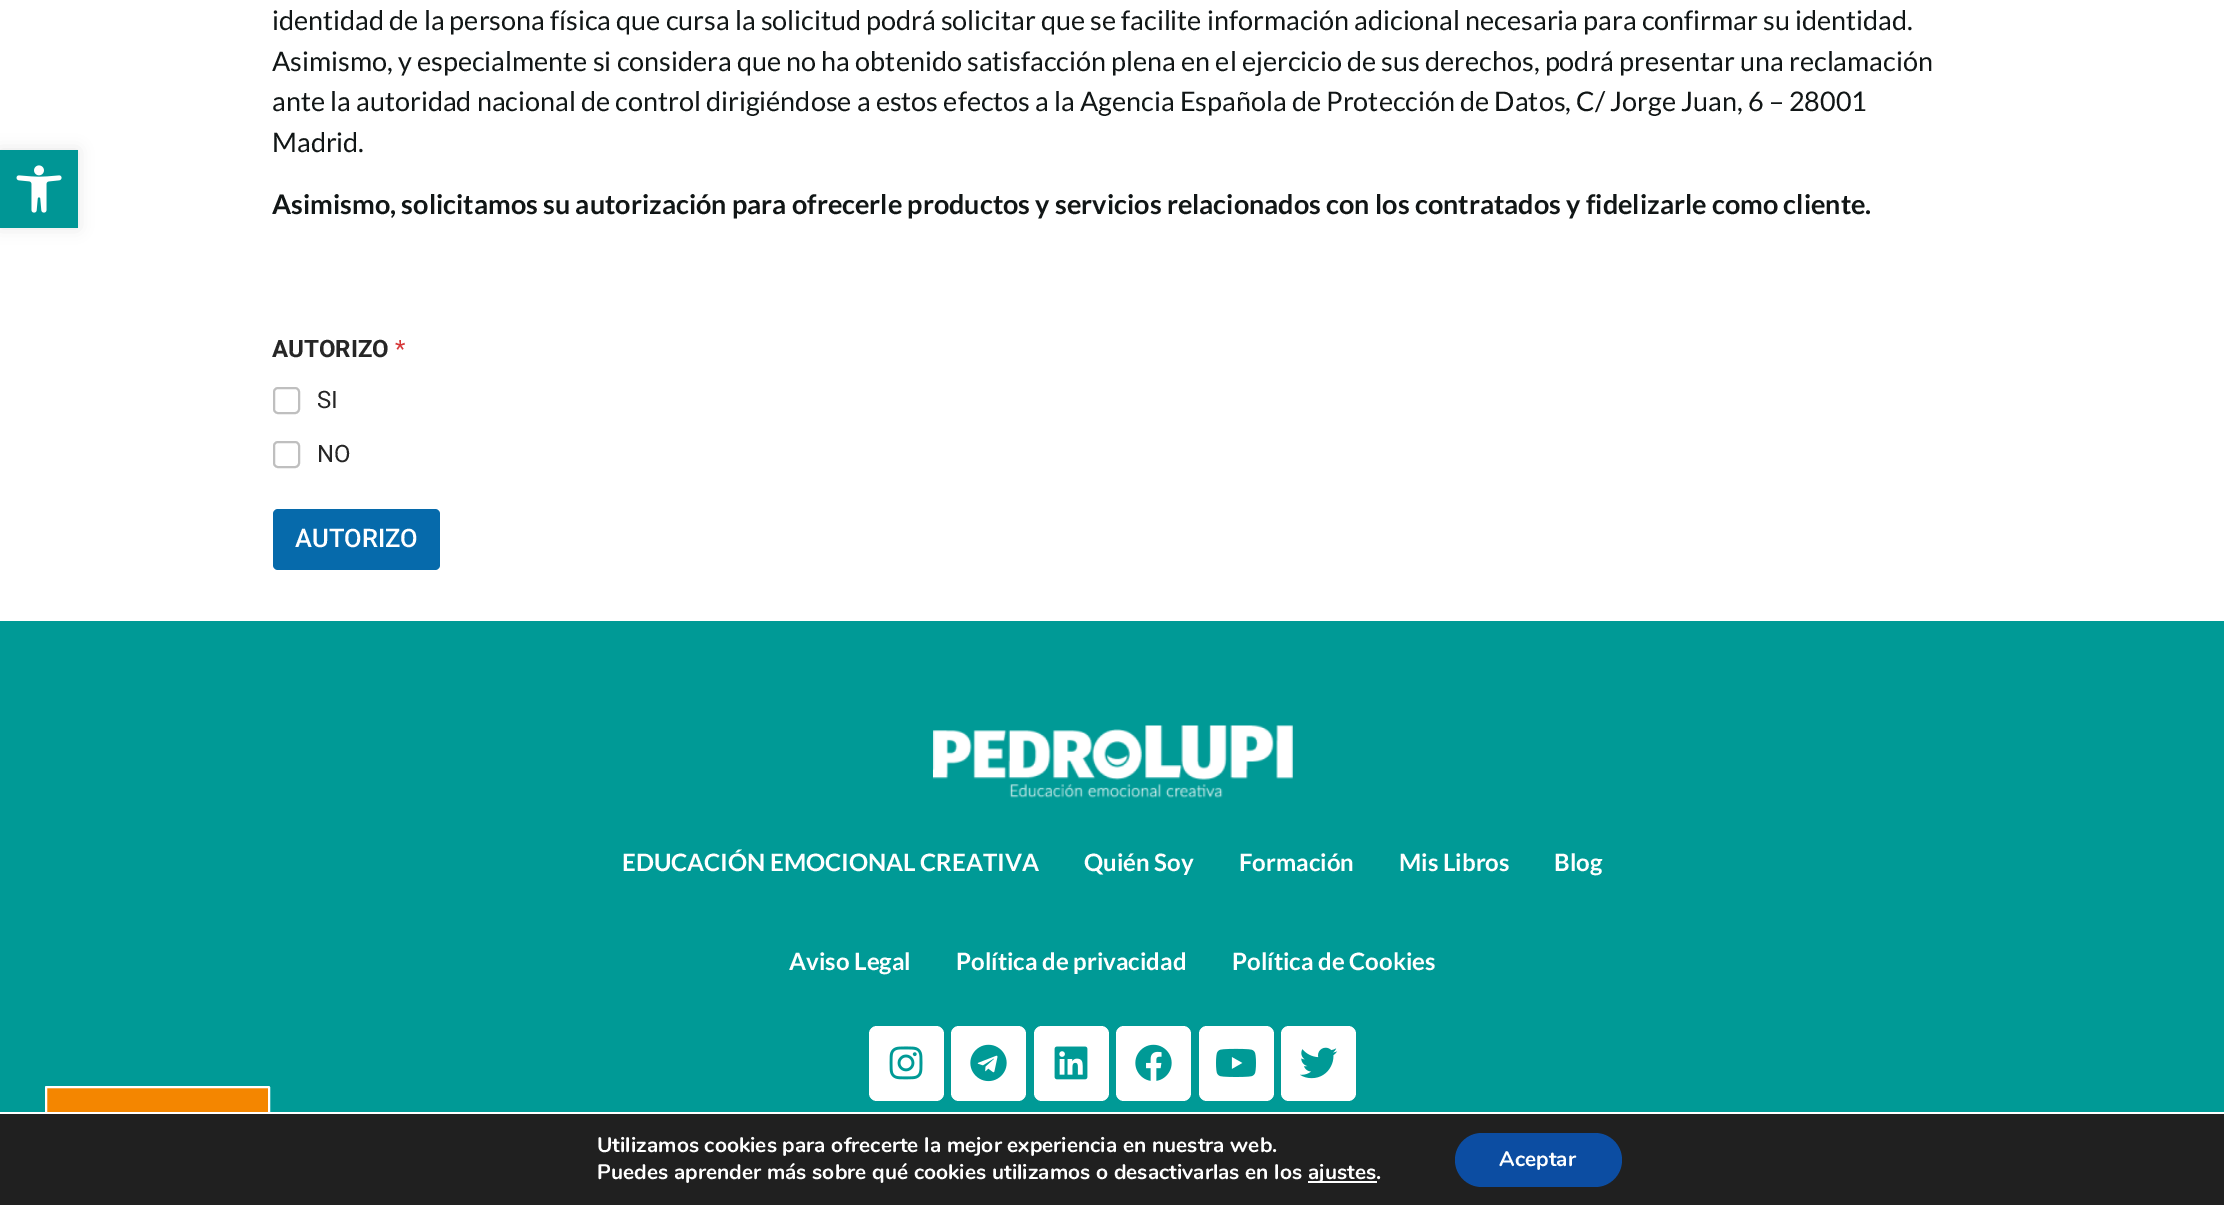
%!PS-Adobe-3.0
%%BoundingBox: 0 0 2224 1205
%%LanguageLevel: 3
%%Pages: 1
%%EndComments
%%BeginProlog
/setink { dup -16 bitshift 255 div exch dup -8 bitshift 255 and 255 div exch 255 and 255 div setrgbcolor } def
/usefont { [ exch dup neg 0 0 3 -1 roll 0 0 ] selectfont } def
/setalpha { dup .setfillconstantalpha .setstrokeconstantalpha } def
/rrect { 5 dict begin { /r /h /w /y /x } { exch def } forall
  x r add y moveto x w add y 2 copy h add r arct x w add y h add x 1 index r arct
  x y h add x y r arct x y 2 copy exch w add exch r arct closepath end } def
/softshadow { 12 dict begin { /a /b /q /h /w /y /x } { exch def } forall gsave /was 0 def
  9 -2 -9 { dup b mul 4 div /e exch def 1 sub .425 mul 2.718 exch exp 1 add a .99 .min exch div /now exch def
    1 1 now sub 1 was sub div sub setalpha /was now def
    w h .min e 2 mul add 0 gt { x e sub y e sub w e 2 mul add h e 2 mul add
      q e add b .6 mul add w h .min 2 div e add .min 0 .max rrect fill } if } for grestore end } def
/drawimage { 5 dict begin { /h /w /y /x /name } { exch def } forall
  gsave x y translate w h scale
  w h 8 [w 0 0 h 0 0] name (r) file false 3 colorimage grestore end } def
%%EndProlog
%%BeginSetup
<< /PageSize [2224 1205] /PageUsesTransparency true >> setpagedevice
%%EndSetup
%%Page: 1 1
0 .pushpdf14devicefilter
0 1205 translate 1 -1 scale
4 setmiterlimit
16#FFFFFF setink
0 0 2224 1205 rectfill
16#000000 setink
0 150 78 78 0 7.5 0.1 softshadow
16#009695 setink
0 150 78 78 rectfill
(img1.raw) 16 165 46 48 drawimage
/Lato-Regular 27 usefont
16#111616 setink
[
    [(identidad de la persona física que cursa la solicitud podrá solicitar que se facilite información adicional necesaria para confirmar su identidad.) 272 30]
    [(Asimismo, y especialmente si considera que no ha obtenido satisfacción plena en el ejercicio de sus derechos, podrá presentar una reclamación) 272 71]
    [(ante la autoridad nacional de control dirigiéndose a estos efectos a la Agencia Española de Protección de Datos, C/ Jorge Juan, 6 – 28001) 272 111]
    [(Madrid.) 272 152]
] { aload pop moveto show } forall
/Lato-Bold 27 usefont
272 214 moveto (Asimismo, solicitamos su autorización para ofrecerle productos y servicios relacionados con los contratados y fidelizarle como cliente.) show
/Roboto-Bold 24 usefont
16#262626 setink
272 357 moveto (AUTORIZO) show
/Roboto-Regular 24 usefont
16#D63637 setink
395 357 moveto (*) show
16#BFBFBF setink
2 setlinewidth
274 388 25 25 4 rrect stroke
16#262626 setink
317 408 moveto (SI) show
16#BFBFBF setink
274 442 25 25 4 rrect stroke
16#262626 setink
317 462 moveto (NO) show
16#066AAB setink
273 509 167 61 5 rrect fill
/Roboto-Medium 25.5 usefont
16#FFFFFF setink
295 547 moveto (AUTORIZO) show
16#009A96 setink
0 621 2224 491 rectfill
(img2.raw) 933 725 360 73 drawimage
/Lato-Bold 24 usefont
16#FFFFFF setink
[
    [(EDUCACIÓN EMOCIONAL CREATIVA) 622 871]
    [(Quién Soy) 1084 871]
    [(Formación) 1239 871]
    [(Mis Libros) 1399 871]
    [(Blog) 1554 871]
    [(Aviso Legal) 789 970]
    [(Política de privacidad) 956 970]
    [(Política de Cookies) 1232 970]
] { aload pop moveto show } forall
869 1026 75 75 8 rrect fill
(img3.raw) 889 1046 34 34 drawimage
951 1026 75 75 8 rrect fill
(img4.raw) 970 1044 37 38 drawimage
1034 1026 75 75 8 rrect fill
(img5.raw) 1054 1046 34 34 drawimage
1116 1026 75 75 8 rrect fill
(img6.raw) 1135 1044 37 37 drawimage
1199 1026 75 75 8 rrect fill
(img7.raw) 1216 1048 40 29 drawimage
1281 1026 75 75 8 rrect fill
(img8.raw) 1300 1047 38 32 drawimage
16#F48600 setink
46 1087 223 73 0.5 rrect gsave fill grestore
16#FFFFFF setink
stroke
16#202020 setink
0 1114 2224 91 rectfill
16#FFFFFF setink
47 1112 221 2 rectfill
/Nunito-Bold 21 usefont
597 1152 moveto (Utilizamos cookies para ofrecerte la mejor experiencia en nuestra web.) show
597 1179 moveto (Puedes aprender más sobre qué cookies utilizamos o desactivarlas en los) show
1308 1181 69 2 rectfill
1308 1179 moveto (ajustes.) show
16#0C4DA2 setink
1455 1133 167 54 27 rrect fill
16#FFFFFF setink
1499 1166 moveto (Aceptar) show
.poppdf14devicefilter showpage
%%EOF
